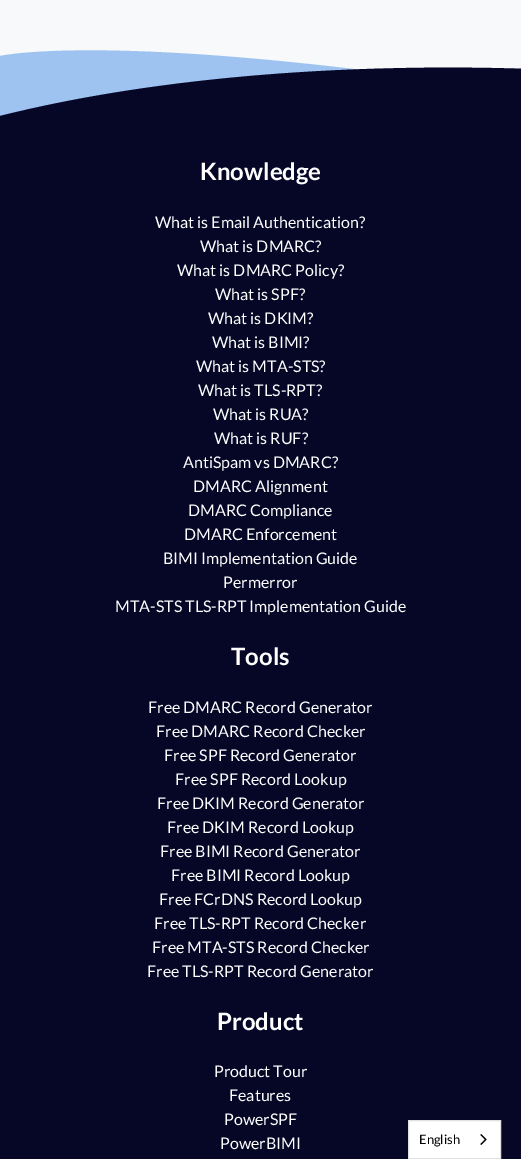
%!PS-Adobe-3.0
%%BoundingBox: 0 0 521 1159
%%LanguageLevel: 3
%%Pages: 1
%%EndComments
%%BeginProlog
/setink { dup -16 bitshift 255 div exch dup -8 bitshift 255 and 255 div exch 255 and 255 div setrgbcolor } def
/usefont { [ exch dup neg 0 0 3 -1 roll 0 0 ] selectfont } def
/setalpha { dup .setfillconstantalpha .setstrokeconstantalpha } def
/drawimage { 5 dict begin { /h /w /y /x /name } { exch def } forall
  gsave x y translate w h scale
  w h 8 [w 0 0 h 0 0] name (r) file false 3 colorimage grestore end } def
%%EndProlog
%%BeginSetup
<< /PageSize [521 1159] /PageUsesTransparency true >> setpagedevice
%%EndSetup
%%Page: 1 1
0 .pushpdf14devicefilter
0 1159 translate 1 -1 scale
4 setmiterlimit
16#F8F9FA setink
0 0 521 1159 rectfill
16#060727 setink
0 135 521 1024 rectfill
gsave
0 35 521 100 rectclip
0.4 setalpha
16#1A73E3 setink
0 56 moveto 0 56 122 28 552 97 curveto 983 166 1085 53 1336 38 curveto 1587 23 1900 86 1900 86 curveto 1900 327 lineto 0 327 lineto closepath fill
1 setalpha
16#060727 setink
0 116 moveto 151 78 370 56 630 74 curveto 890 92 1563 182 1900 45 curveto 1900 680 lineto 0 680 lineto closepath fill
grestore
/Lato-Bold 24 usefont
16#FFFFFF setink
200 180 moveto (Knowledge) show
/Lato-Regular 16 usefont
[
    [(What is Email Authentication?) 155 228]
    [(What is DMARC?) 200 252]
    [(What is DMARC Policy?) 177 276]
    [(What is SPF?) 215 300]
    [(What is DKIM?) 208 324]
    [(What is BIMI?) 212 348]
    [(What is MTA-STS?) 196 372]
    [(What is TLS-RPT?) 198 396]
    [(What is RUA?) 213 420]
    [(What is RUF?) 214 444]
    [(AntiSpam vs DMARC?) 183 468]
    [(DMARC Alignment) 193 492]
    [(DMARC Compliance) 188 516]
    [(DMARC Enforcement) 184 540]
    [(BIMI Implementation Guide) 163 564]
    [(Permerror) 223 588]
    [(MTA-STS TLS-RPT Implementation Guide) 115 612]
] { aload pop moveto show } forall
/Lato-Bold 24 usefont
231 665 moveto (Tools) show
/Lato-Regular 16 usefont
[
    [(Free DMARC Record Generator) 148 713]
    [(Free DMARC Record Checker) 156 737]
    [(Free SPF Record Generator) 164 761]
    [(Free SPF Record Lookup) 175 785]
    [(Free DKIM Record Generator) 157 809]
    [(Free DKIM Record Lookup) 167 833]
    [(Free BIMI Record Generator) 160 857]
    [(Free BIMI Record Lookup) 171 881]
    [(Free FCrDNS Record Lookup) 159 905]
    [(Free TLS-RPT Record Checker) 154 929]
    [(Free MTA-STS Record Checker) 152 953]
    [(Free TLS-RPT Record Generator) 147 977]
] { aload pop moveto show } forall
/Lato-Bold 24 usefont
217 1030 moveto (Product) show
/Lato-Regular 16 usefont
[
    [(Product Tour) 214 1077]
    [(Features) 229 1101]
    [(PowerSPF) 224 1125]
    [(PowerBIMI) 220 1149]
] { aload pop moveto show } forall
408.5 1120.5 moveto 500.5 1120.5 lineto 500.5 1158.5 lineto 408.5 1158.5 lineto closepath gsave fill grestore
16#E0E0E0 setink
stroke
/Lato-Regular 13 usefont
16#000000 setink
419 1144 moveto (English) show
(img1.raw) 480 1134 7 11 drawimage
.poppdf14devicefilter showpage
%%EOF
